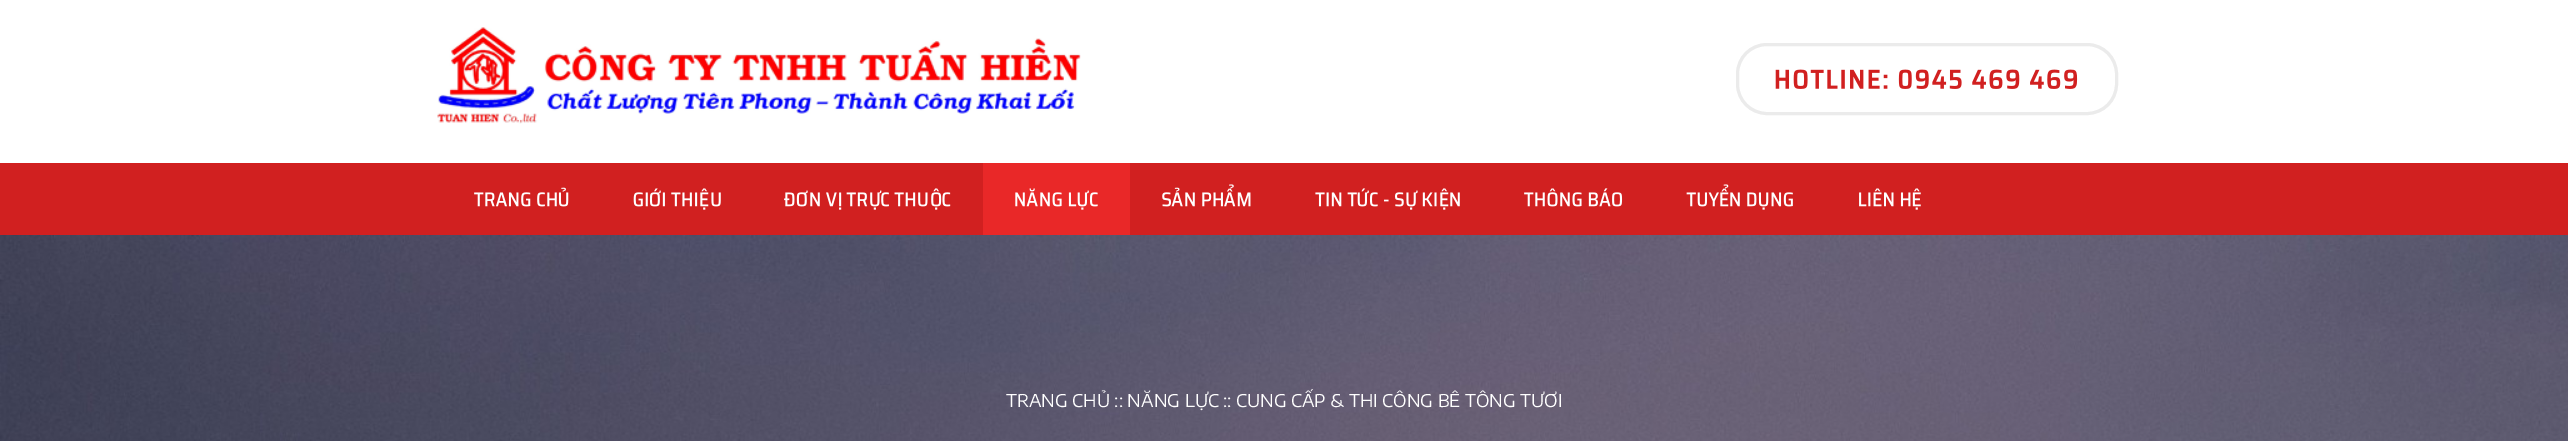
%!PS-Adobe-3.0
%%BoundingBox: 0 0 2568 441
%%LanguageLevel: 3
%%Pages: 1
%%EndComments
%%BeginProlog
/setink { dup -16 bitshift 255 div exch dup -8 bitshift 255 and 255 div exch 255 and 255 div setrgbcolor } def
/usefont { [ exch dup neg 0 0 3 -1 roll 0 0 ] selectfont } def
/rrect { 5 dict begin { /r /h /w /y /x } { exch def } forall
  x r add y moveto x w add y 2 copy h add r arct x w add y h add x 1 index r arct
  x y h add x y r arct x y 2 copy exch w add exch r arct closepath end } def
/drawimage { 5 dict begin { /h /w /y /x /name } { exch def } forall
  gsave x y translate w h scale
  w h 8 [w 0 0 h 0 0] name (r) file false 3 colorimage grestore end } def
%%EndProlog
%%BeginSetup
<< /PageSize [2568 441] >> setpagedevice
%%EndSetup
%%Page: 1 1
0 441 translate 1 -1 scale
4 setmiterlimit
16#FFFFFF setink
0 0 2568 441 rectfill
(img1.raw) 437 27 644 97 drawimage
16#EBEBEB setink
3 setlinewidth
1737.5 44.5 379 69 29.5 rrect stroke
(img2.raw) 1775 69 303 20 drawimage
16#D12020 setink
0 163 2568 72 rectfill
(img3.raw) 474 192 83 15 drawimage
(img4.raw) 558 187 11 20 drawimage
(img5.raw) 633 192 15 15 drawimage
(img6.raw) 649 188 12 19 drawimage
(img7.raw) 662 192 36 15 drawimage
(img8.raw) 700 188 9 22 drawimage
(img9.raw) 711 192 10 15 drawimage
(img10.raw) 784 190 24 17 drawimage
(img11.raw) 810 192 27 15 drawimage
(img12.raw) 839 192 3 18 drawimage
(img13.raw) 846 192 22 15 drawimage
(img14.raw) 870 190 12 20 drawimage
(img15.raw) 881 192 47 15 drawimage
(img16.raw) 931 188 11 22 drawimage
(img17.raw) 942 192 9 15 drawimage
16#E92828 setink
983 163 147 72 rectfill
(img18.raw) 1015 192 10 15 drawimage
(img19.raw) 1026 188 12 19 drawimage
(img20.raw) 1040 192 37 15 drawimage
(img21.raw) 1077 190 12 20 drawimage
(img22.raw) 1089 192 9 15 drawimage
(img23.raw) 1162 192 9 15 drawimage
(img24.raw) 1171 187 12 20 drawimage
(img25.raw) 1185 192 38 15 drawimage
(img26.raw) 1224 184 12 23 drawimage
(img27.raw) 1237 192 14 15 drawimage
(img28.raw) 1315 192 42 15 drawimage
(img29.raw) 1357 188 12 19 drawimage
(img30.raw) 1369 192 35 15 drawimage
(img31.raw) 1406 190 12 20 drawimage
(img32.raw) 1422 192 15 15 drawimage
(img8.raw) 1440 188 9 22 drawimage
(img33.raw) 1450 192 10 15 drawimage
(img34.raw) 1524 188 99 19 drawimage
(img35.raw) 1686 192 33 15 drawimage
(img36.raw) 1720 184 9 23 drawimage
(img37.raw) 1730 192 27 15 drawimage
(img38.raw) 1758 192 11 18 drawimage
(img39.raw) 1771 192 22 15 drawimage
(img40.raw) 1859 188 52 19 drawimage
(img41.raw) 1912 188 9 22 drawimage
(img42.raw) 0 235 2568 206 drawimage
/EncodeSansSemiExpanded-Regular 17.5 usefont
16#FFFFFF setink
1006 407 moveto (TRANG CHỦ :: NĂNG LỰC :: CUNG CẤP & THI CÔNG BÊ TÔNG TƯƠI) show
showpage
%%EOF
